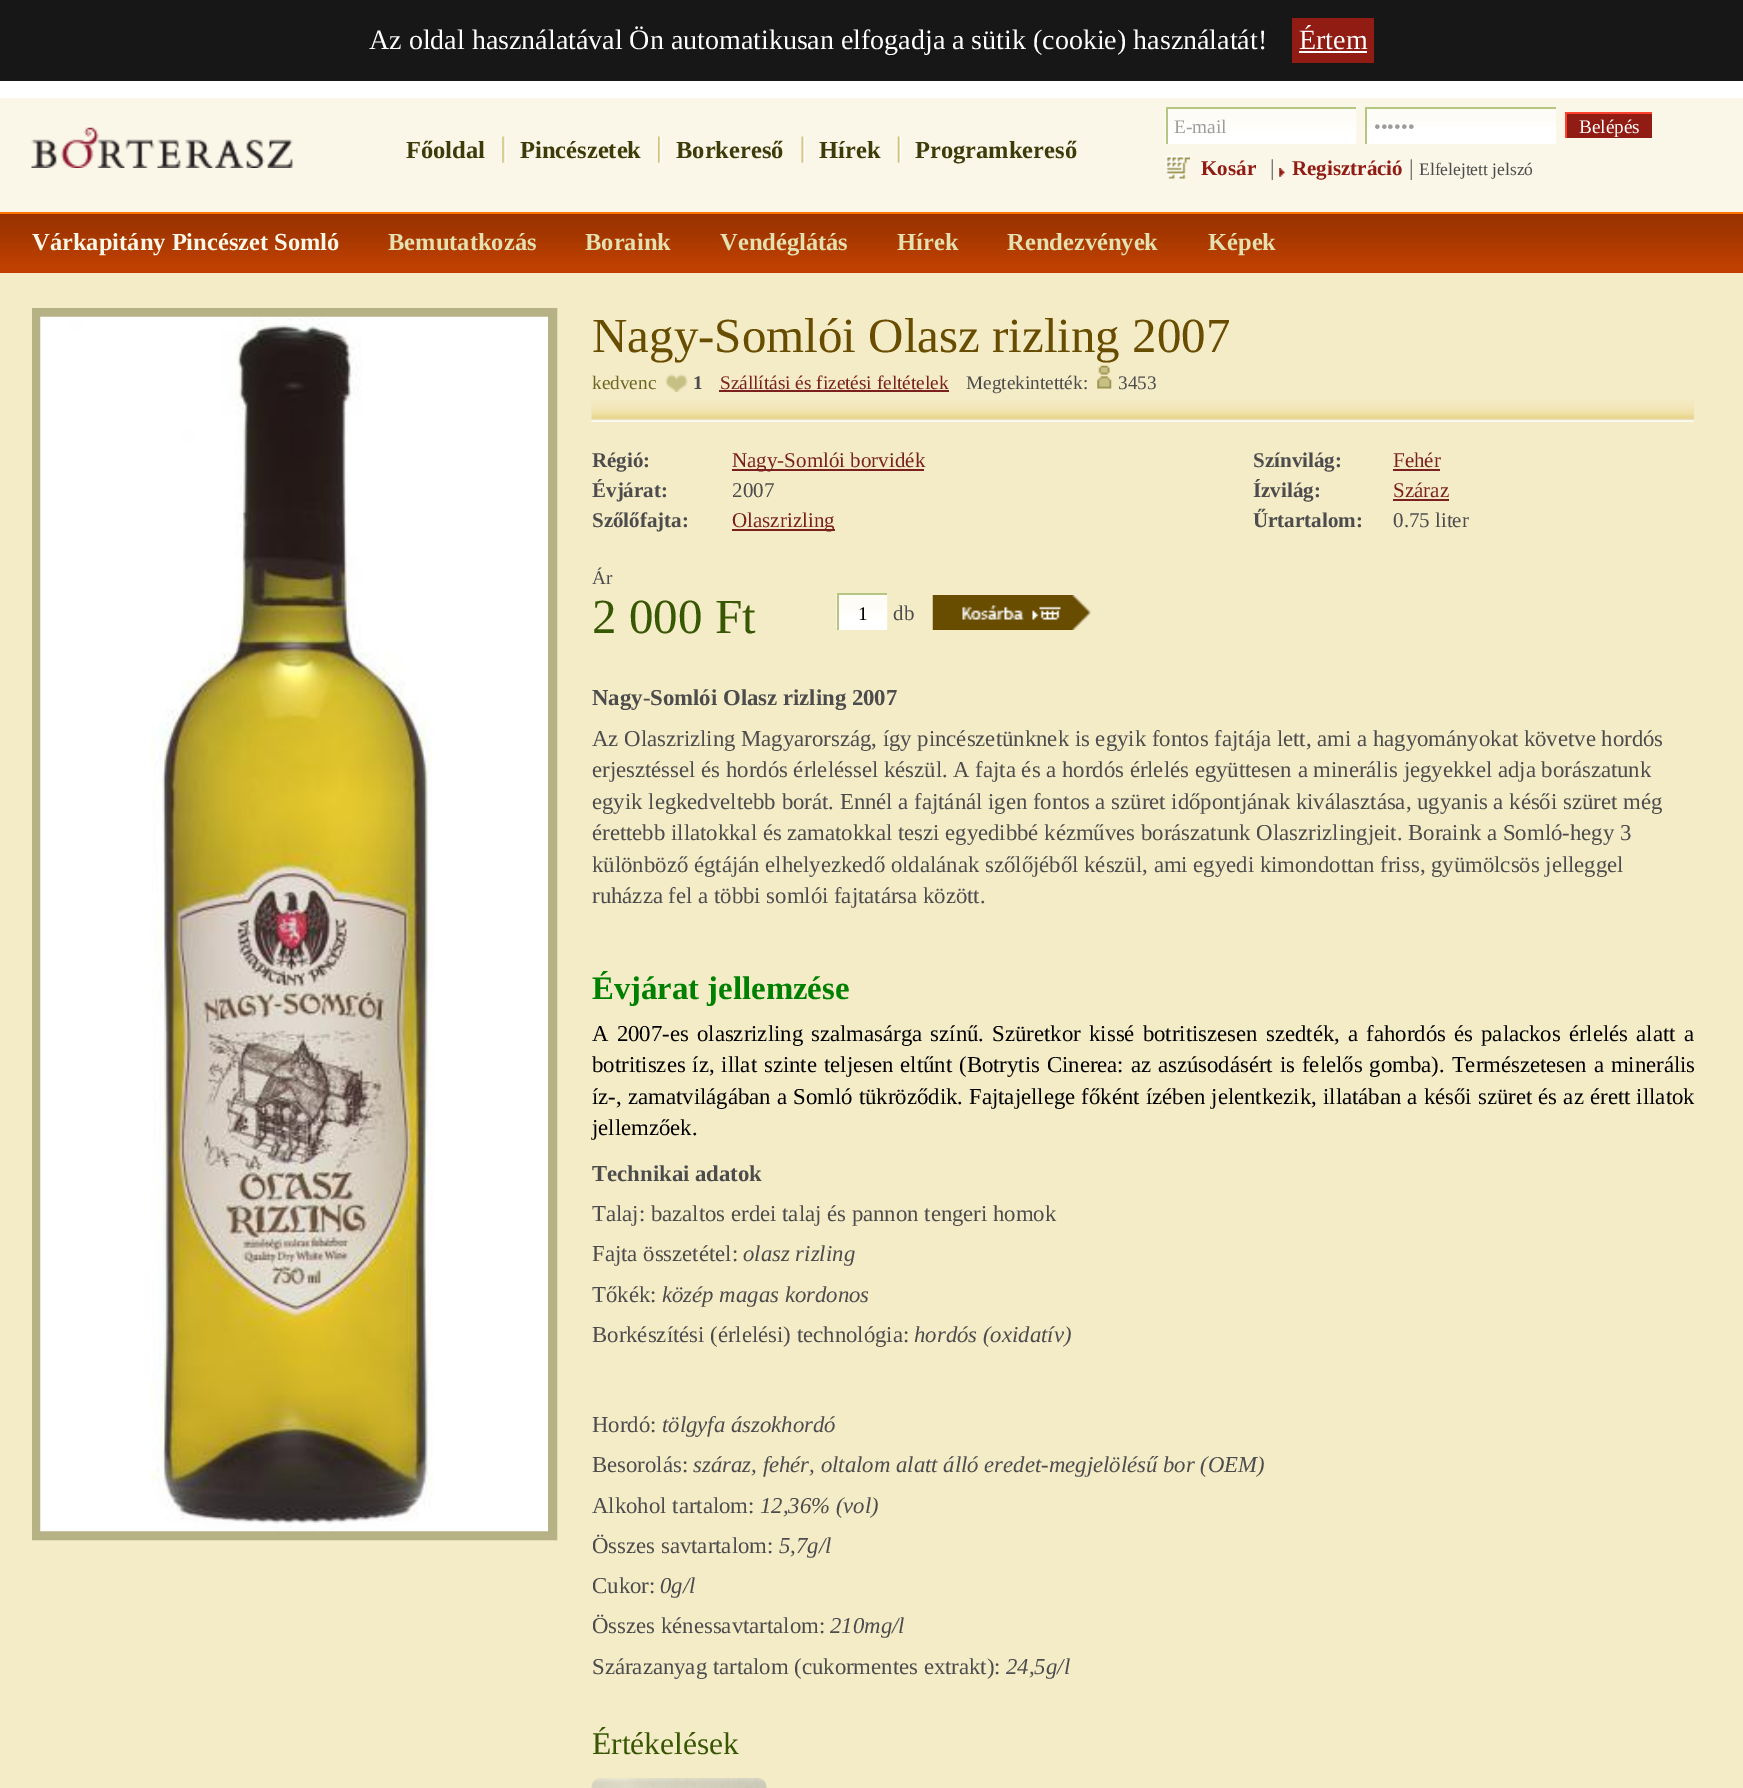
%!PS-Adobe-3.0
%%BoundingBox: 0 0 1743 1788
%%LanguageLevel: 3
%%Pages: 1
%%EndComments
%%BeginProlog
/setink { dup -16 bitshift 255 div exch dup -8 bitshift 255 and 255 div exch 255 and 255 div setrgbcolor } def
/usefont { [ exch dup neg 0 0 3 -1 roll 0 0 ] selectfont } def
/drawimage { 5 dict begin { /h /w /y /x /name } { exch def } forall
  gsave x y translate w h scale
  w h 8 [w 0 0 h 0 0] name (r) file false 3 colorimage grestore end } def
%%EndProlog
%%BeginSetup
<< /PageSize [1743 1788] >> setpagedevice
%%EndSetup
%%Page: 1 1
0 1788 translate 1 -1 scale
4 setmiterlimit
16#FFFFFF setink
0 0 1743 1788 rectfill
16#171717 setink
0 0 1743 81 rectfill
/LiberationSerif-Regular 28 usefont
16#FFFFFF setink
369 49 moveto (Az oldal használatával Ön automatikusan elfogadja a sütik \(cookie\) használatát!) show
16#901C13 setink
1292 18 82 45 rectfill
16#FFFFFF setink
1299 49 moveto (Értem) show
1299 51 68 2 rectfill
16#FAF7E8 setink
0 98 1743 114 rectfill
(img1.raw) 31 127 262 41 drawimage
/LiberationSerif-Bold 24.5 usefont
16#3C3B09 setink
406 158 moveto (Főoldal) show
(img2.raw) 502 136 4 27 drawimage
520 158 moveto (Pincészetek) show
(img3.raw) 658 136 4 27 drawimage
676 158 moveto (Borkereső) show
(img4.raw) 801 136 4 27 drawimage
819 158 moveto (Hírek) show
(img5.raw) 897 136 5 27 drawimage
915 158 moveto (Programkereső) show
16#FFFFFF setink
1168 141 188 3 rectfill
(img6.raw) 1165 108 192 34 drawimage
16#B4C682 setink
1166 107 190 2 rectfill
1166 107 2 37 rectfill
/LiberationSerif-Regular 19.25 usefont
16#9C9C9C setink
1174 133 moveto (E-mail) show
16#FFFFFF setink
1367 109 189 35 rectfill
(img7.raw) 1367 109 189 18 drawimage
16#B4C682 setink
1365 107 191 2 rectfill
1365 107 2 37 rectfill
16#9C9C9C setink
1374 133 moveto (••••••) show
[
    [1567 114 85 24 16#901C13]
    [1565 112 87 2 16#FF402C]
    [1565 112 2 26 16#FF402C]
] { aload pop setink rectfill } forall
16#FFFFFF setink
1579 133 moveto (Belépés) show
(img8.raw) 1165 155 25 24 drawimage
/LiberationSerif-Bold 21 usefont
16#901C13 setink
1201 175 moveto (Kosár) show
/LiberationSerif-Regular 22.75 usefont
16#4C4C4C setink
1270 175 moveto (|) show
(img9.raw) 1279 168 6 9 drawimage
/LiberationSerif-Bold 21 usefont
16#901C13 setink
1292 175 moveto (Regisztráció) show
/LiberationSerif-Regular 22.75 usefont
16#4C4C4C setink
1409 175 moveto (|) show
/LiberationSerif-Regular 17.5 usefont
1419 175 moveto (Elfelejtett jelszó) show
(img10.raw) 0 214 1743 59 drawimage
16#FF7500 setink
0 212 1743 2 rectfill
/LiberationSerif-Bold 24.5 usefont
16#FAF7E8 setink
32 250 moveto (Várkapitány Pincészet Somló) show
16#E5E0B0 setink
[
    [(Bemutatkozás) 388 250]
    [(Boraink) 585 250]
    [(Vendéglátás) 720 250]
    [(Hírek) 897 250]
    [(Rendezvények) 1007 250]
    [(Képek) 1208 250]
] { aload pop moveto show } forall
16#F4EBC7 setink
0 273 1743 1515 rectfill
16#B7B286 setink
9 setlinewidth
36.5 312.5 516 1223 rectstroke
(img11.raw) 40 316 508 1216 drawimage
/LiberationSerif-Regular 49 usefont
16#684C00 setink
592 352 moveto (Nagy-Somlói Olasz rizling 2007) show
(img12.raw) 591 400 1103 22 drawimage
/LiberationSerif-Regular 19.25 usefont
16#6D6621 setink
592 389 moveto (kedvenc) show
(img13.raw) 665 374 23 18 drawimage
/LiberationSerif-Bold 19.25 usefont
16#4C4C4C setink
693 389 moveto (1) show
/LiberationSerif-Regular 19.25 usefont
16#7A211F setink
720 389 moveto (Szállítási és fizetési feltételek) show
719 390 230 2 rectfill
16#4C4C4C setink
966 389 moveto (Megtekintették:) show
(img14.raw) 1097 365 15 24 drawimage
1118 389 moveto (3453) show
/LiberationSerif-Bold 21 usefont
592 467 moveto (Régió:) show
16#7A211F setink
732 469 192 2 rectfill
/LiberationSerif-Regular 21 usefont
732 467 moveto (Nagy-Somlói borvidék) show
/LiberationSerif-Bold 21 usefont
16#4C4C4C setink
592 497 moveto (Évjárat:) show
/LiberationSerif-Regular 21 usefont
732 497 moveto (2007) show
/LiberationSerif-Bold 21 usefont
592 527 moveto (Szőlőfajta:) show
16#7A211F setink
732 529 103 2 rectfill
/LiberationSerif-Regular 21 usefont
732 527 moveto (Olaszrizling) show
/LiberationSerif-Bold 21 usefont
16#4C4C4C setink
1253 467 moveto (Színvilág:) show
/LiberationSerif-Regular 21 usefont
16#7A211F setink
1393 467 moveto (Fehér) show
1393 469 47 2 rectfill
/LiberationSerif-Bold 21 usefont
16#4C4C4C setink
1253 497 moveto (Ízvilág:) show
/LiberationSerif-Regular 21 usefont
16#7A211F setink
1393 497 moveto (Száraz) show
1393 499 56 2 rectfill
/LiberationSerif-Bold 21 usefont
16#4C4C4C setink
1253 527 moveto (Űrtartalom:) show
/LiberationSerif-Regular 21 usefont
1393 527 moveto (0.75 liter) show
/LiberationSerif-Regular 19.25 usefont
592 584 moveto (Ár) show
/LiberationSerif-Regular 49 usefont
16#385703 setink
592 633 moveto (2 000 Ft) show
16#FFFFFF setink
839 628 48 2 rectfill
(img15.raw) 836 595 52 34 drawimage
16#B4C682 setink
837 593 50 2 rectfill
837 593 2 37 rectfill
/LiberationSerif-Regular 19.25 usefont
16#000000 setink
858 620 moveto (1) show
/LiberationSerif-Regular 21 usefont
16#4C4C4C setink
893 620 moveto (db) show
(img16.raw) 932 595 159 35 drawimage
/LiberationSerif-Bold 22.75 usefont
592 705 moveto (Nagy-Somlói Olasz rizling 2007) show
/LiberationSerif-Regular 22.75 usefont
[
    [(Az Olaszrizling Magyarország, így pincészetünknek is egyik fontos fajtája lett, ami a hagyományokat követve hordós) 592 746]
    [(erjesztéssel és hordós érleléssel készül. A fajta és a hordós érlelés együttesen a minerális jegyekkel adja borászatunk) 592 777]
    [(egyik legkedveltebb borát. Ennél a fajtánál igen fontos a szüret időpontjának kiválasztása, ugyanis a késői szüret még) 592 809]
    [(érettebb illatokkal és zamatokkal teszi egyedibbé kézműves borászatunk Olaszrizlingjeit. Boraink a Somló-hegy 3) 592 840]
    [(különböző égtáján elhelyezkedő oldalának szőlőjéből készül, ami egyedi kimondottan friss, gyümölcsös jelleggel) 592 872]
    [(ruházza fel a többi somlói fajtatársa között.) 592 903]
] { aload pop moveto show } forall
/LiberationSerif-Bold 32.75 usefont
16#008000 setink
592 999 moveto (Évjárat jellemzése) show
/LiberationSerif-Regular 22.75 usefont
16#000000 setink
592 1041 moveto 2.5 0 32 (A 2007-es olaszrizling szalmasárga színű. Szüretkor kissé botritiszesen szedték, a fahordós és palackos érlelés alatt a) widthshow
592 1072 moveto 1.25 0 32 (botritiszes íz, illat szinte teljesen eltűnt \(Botrytis Cinerea: az aszúsodásért is felelős gomba\). Természetesen a minerális) widthshow
592 1104 moveto 0.5 0 32 (íz-, zamatvilágában a Somló tükröződik. Fajtajellege főként ízében jelentkezik, illatában a késői szüret és az érett illatok) widthshow
592 1135 moveto (jellemzőek.) show
/LiberationSerif-Bold 22.75 usefont
16#4C4C4C setink
592 1181 moveto (Technikai adatok) show
/LiberationSerif-Regular 22.75 usefont
592 1221 moveto (Talaj: bazaltos erdei talaj és pannon tengeri homok) show
592 1261 moveto (Fajta összetétel:) show
/LiberationSerif-Italic 22.75 usefont
743 1261 moveto (olasz rizling) show
/LiberationSerif-Regular 22.75 usefont
592 1302 moveto (Tőkék:) show
/LiberationSerif-Italic 22.75 usefont
662 1302 moveto (közép magas kordonos) show
/LiberationSerif-Regular 22.75 usefont
592 1342 moveto (Borkészítési \(érlelési\) technológia:) show
/LiberationSerif-Italic 22.75 usefont
914 1342 moveto (hordós \(oxidatív\)) show
/LiberationSerif-Regular 22.75 usefont
592 1432 moveto (Hordó:) show
/LiberationSerif-Italic 22.75 usefont
662 1432 moveto (tölgyfa ászokhordó) show
/LiberationSerif-Regular 22.75 usefont
592 1472 moveto (Besorolás:) show
/LiberationSerif-Italic 22.75 usefont
693 1472 moveto (száraz, fehér, oltalom alatt álló eredet-megjelölésű bor \(OEM\)) show
/LiberationSerif-Regular 22.75 usefont
592 1513 moveto (Alkohol tartalom:) show
/LiberationSerif-Italic 22.75 usefont
760 1513 moveto (12,36% \(vol\)) show
/LiberationSerif-Regular 22.75 usefont
592 1553 moveto (Összes savtartalom:) show
/LiberationSerif-Italic 22.75 usefont
779 1553 moveto (5,7g/l) show
/LiberationSerif-Regular 22.75 usefont
592 1593 moveto (Cukor:) show
/LiberationSerif-Italic 22.75 usefont
660 1593 moveto (0g/l) show
/LiberationSerif-Regular 22.75 usefont
592 1633 moveto (Összes kénessavtartalom:) show
/LiberationSerif-Italic 22.75 usefont
830 1633 moveto (210mg/l) show
/LiberationSerif-Regular 22.75 usefont
592 1674 moveto (Szárazanyag tartalom \(cukormentes extrakt\):) show
/LiberationSerif-Italic 22.75 usefont
1006 1674 moveto (24,5g/l) show
/LiberationSerif-Regular 31.5 usefont
16#385703 setink
592 1754 moveto (Értékelések) show
(img17.raw) 591 1778 176 10 drawimage
showpage
%%EOF
